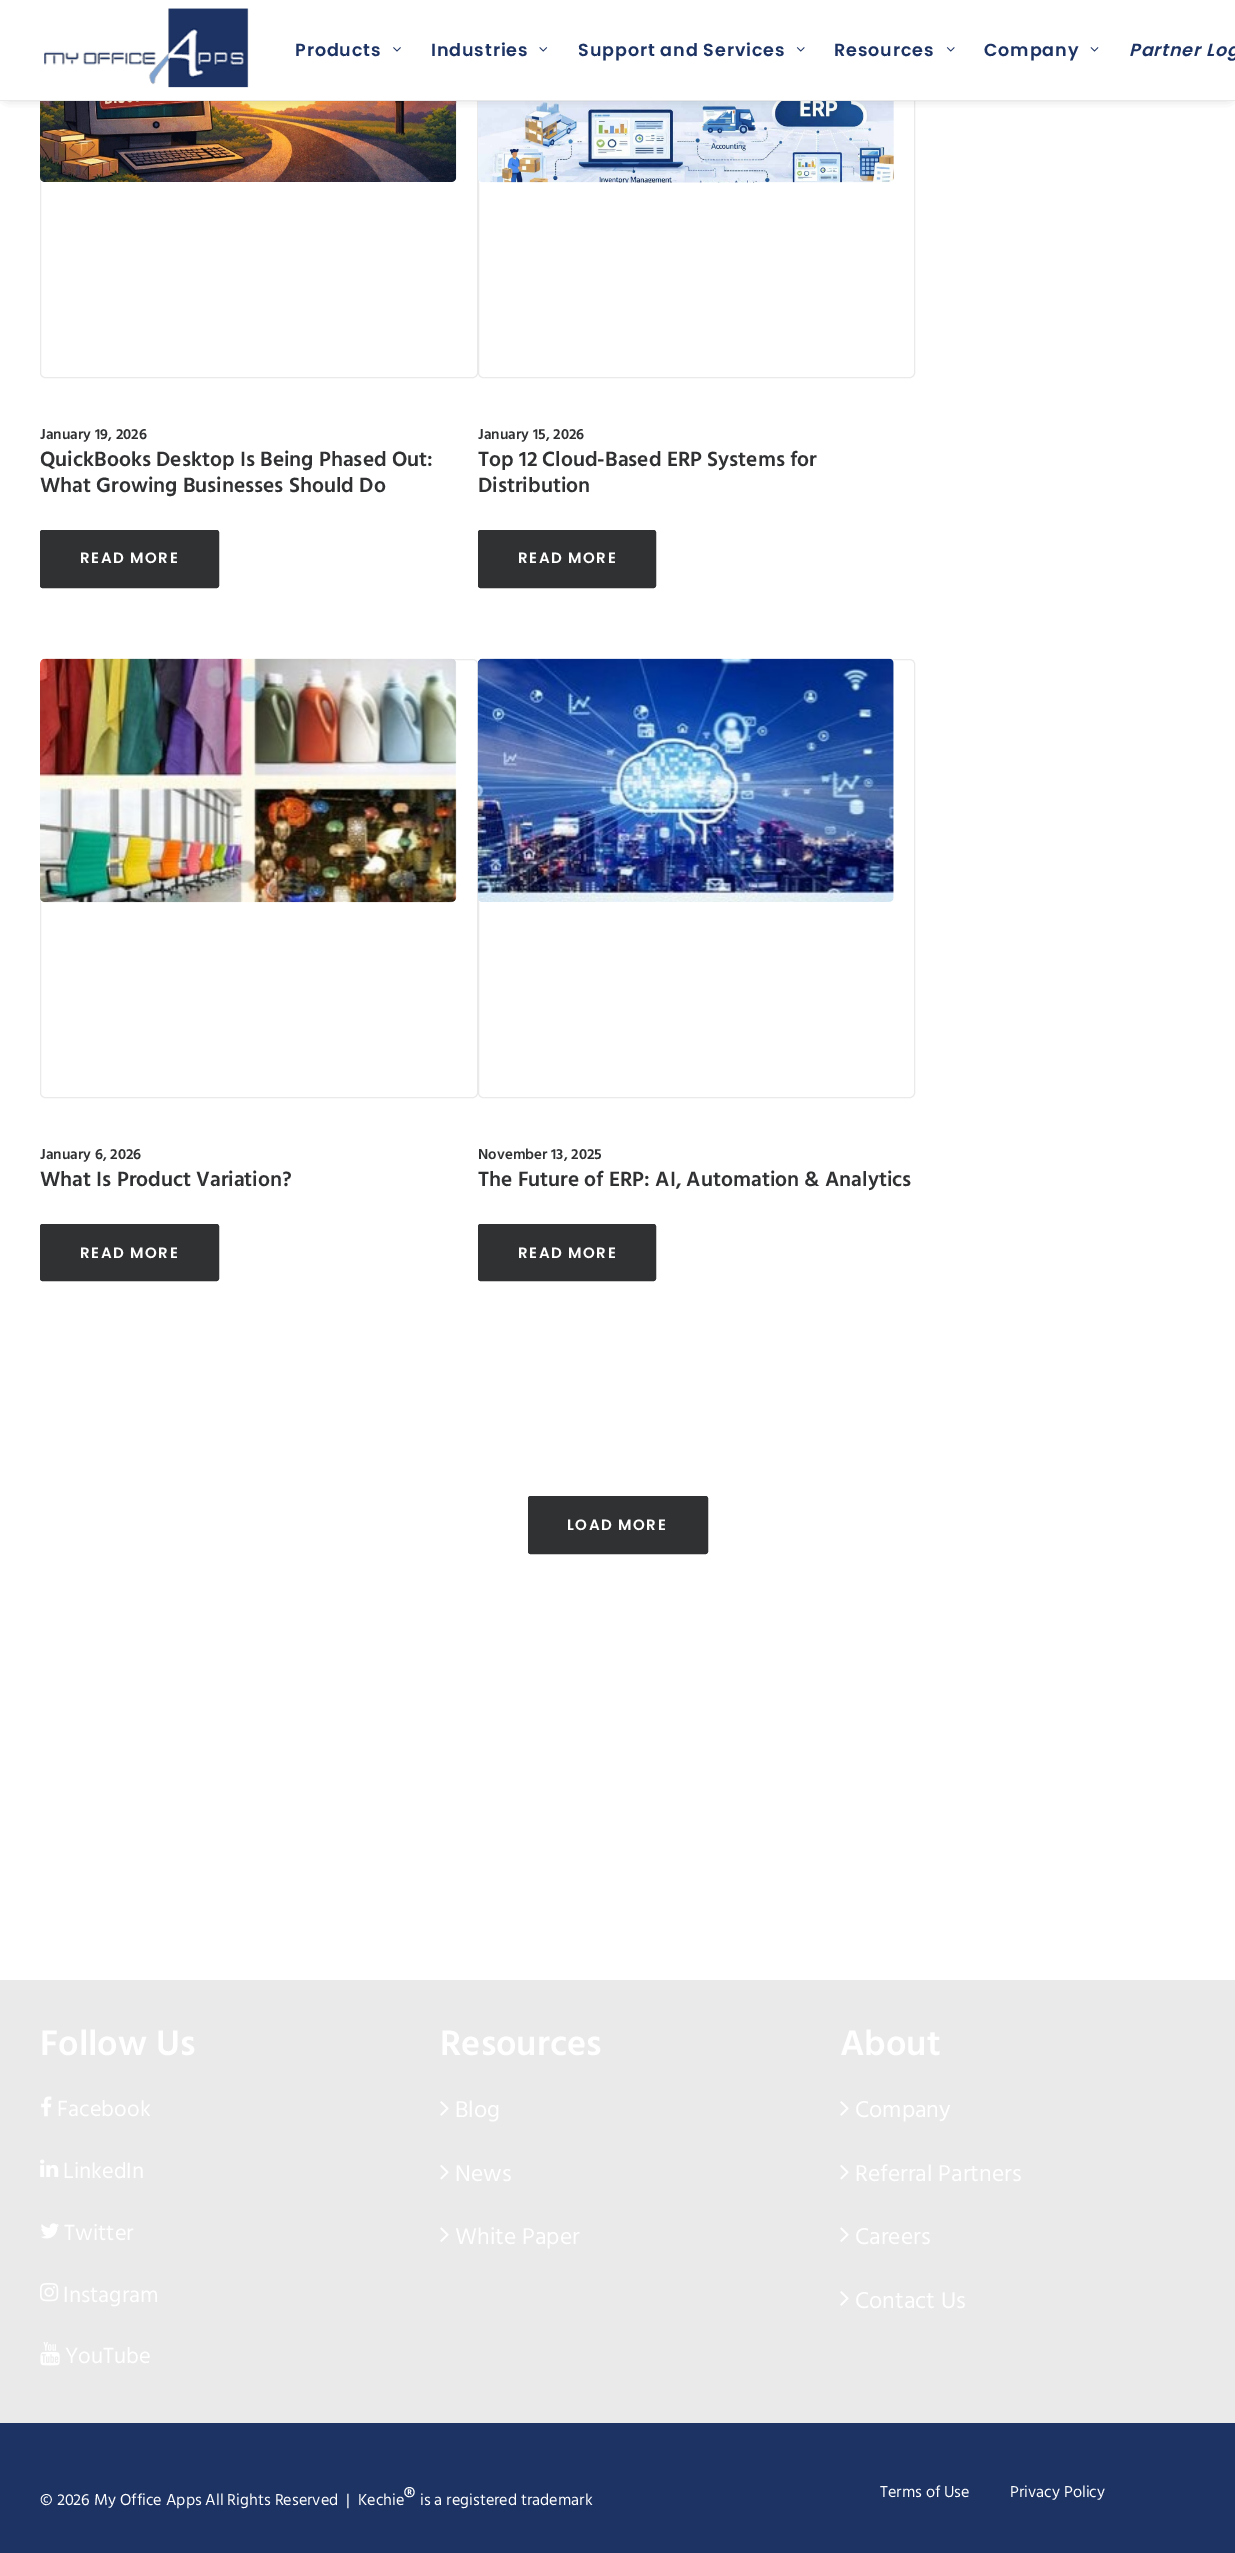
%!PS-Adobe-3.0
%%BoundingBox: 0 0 1235 2553
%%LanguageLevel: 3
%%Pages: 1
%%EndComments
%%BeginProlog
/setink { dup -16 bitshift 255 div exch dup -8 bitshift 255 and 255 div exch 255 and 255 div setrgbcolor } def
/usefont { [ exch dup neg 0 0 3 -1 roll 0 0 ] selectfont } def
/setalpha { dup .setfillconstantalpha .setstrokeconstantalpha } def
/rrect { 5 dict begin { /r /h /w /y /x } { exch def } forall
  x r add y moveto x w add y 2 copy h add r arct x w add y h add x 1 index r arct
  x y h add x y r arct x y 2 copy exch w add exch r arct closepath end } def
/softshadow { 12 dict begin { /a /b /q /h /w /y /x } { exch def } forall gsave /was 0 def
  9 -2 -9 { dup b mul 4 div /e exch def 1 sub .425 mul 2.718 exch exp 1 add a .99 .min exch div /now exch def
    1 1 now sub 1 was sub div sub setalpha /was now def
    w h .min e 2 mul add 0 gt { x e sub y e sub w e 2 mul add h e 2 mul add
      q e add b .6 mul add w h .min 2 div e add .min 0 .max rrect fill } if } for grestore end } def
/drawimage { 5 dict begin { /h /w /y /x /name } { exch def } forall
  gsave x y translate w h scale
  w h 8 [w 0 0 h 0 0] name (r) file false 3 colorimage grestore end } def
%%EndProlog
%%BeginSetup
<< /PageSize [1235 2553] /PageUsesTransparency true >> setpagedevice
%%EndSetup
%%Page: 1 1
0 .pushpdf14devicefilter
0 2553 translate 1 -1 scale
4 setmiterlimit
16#FFFFFF setink
0 0 1235 2553 rectfill
16#EAEAEA setink
40.5 -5.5 437 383 4.5 rrect stroke
(img6.raw) 40 101 417 81 drawimage
478.5 -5.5 436 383 4.5 rrect stroke
(img7.raw) 478 101 416 82 drawimage
16#000000 setink
8 18 1220 76 0 6 0.6 softshadow
16#FFFFFF setink
0 0 1235 100 rectfill
16#EAEAEA setink
0 100 1235 1 rectfill
(img1.raw) 44 8 205 80 drawimage
/Poppins-SemiBold 17.5 usefont
16#1D3363 setink
295 56 moveto 0.9 0 (Products) ashow
(img2.raw) 393 47 8 5 drawimage
431 56 moveto 0.9 0 (Industries) ashow
(img3.raw) 539 47 9 5 drawimage
578 56 moveto 0.9 0 (Support and Services) ashow
(img4.raw) 796 47 9 5 drawimage
834 56 moveto 0.9 0 (Resources) ashow
(img4.raw) 946 47 9 5 drawimage
984 56 moveto 0.9 0 (Company) ashow
(img5.raw) 1090 47 9 5 drawimage
/Poppins-SemiBoldItalic 17.5 usefont
1129 56 moveto 0.9 0 (Partner Log) ashow
/Hind-SemiBold 15 usefont
16#303133 setink
40 439 moveto (January 19, 2026) show
/Hind-SemiBold 21.25 usefont
40 466 moveto (QuickBooks Desktop Is Being Phased Out:) show
40 492 moveto (What Growing Businesses Should Do) show
40.5 530.5 178 57 2 rrect gsave fill grestore
stroke
/Poppins-SemiBold 15 usefont
16#FFFFFF setink
80 563 moveto 1.5 0 (READ MORE) ashow
/Hind-SemiBold 15 usefont
16#303133 setink
478 439 moveto (January 15, 2026) show
/Hind-SemiBold 21.25 usefont
478 466 moveto (Top 12 Cloud-Based ERP Systems for) show
478 492 moveto (Distribution) show
478.5 530.5 177 57 2 rrect gsave fill grestore
stroke
/Poppins-SemiBold 15 usefont
16#FFFFFF setink
518 563 moveto 1.5 0 (READ MORE) ashow
16#EAEAEA setink
40.5 659.5 437 438 4.5 rrect stroke
(img8.raw) 40 658 417 245 drawimage
/Hind-SemiBold 15 usefont
16#303133 setink
40 1159 moveto (January 6, 2026) show
/Hind-SemiBold 21.25 usefont
40 1186 moveto (What Is Product Variation?) show
40.5 1224.5 178 56 2 rrect gsave fill grestore
stroke
/Poppins-SemiBold 15 usefont
16#FFFFFF setink
80 1258 moveto 1.5 0 (READ MORE) ashow
16#EAEAEA setink
478.5 659.5 436 438 4.5 rrect stroke
(img9.raw) 477 658 417 244 drawimage
/Hind-SemiBold 15 usefont
16#303133 setink
478 1159 moveto (November 13, 2025) show
/Hind-SemiBold 21.25 usefont
478 1186 moveto (The Future of ERP: AI, Automation & Analytics) show
478.5 1224.5 177 56 2 rrect gsave fill grestore
stroke
/Poppins-SemiBold 15 usefont
16#FFFFFF setink
518 1258 moveto 1.5 0 (READ MORE) ashow
16#303133 setink
528.5 1496.5 179 57 2 rrect gsave fill grestore
stroke
16#FFFFFF setink
567 1530 moveto 1.5 0 (LOAD MORE) ashow
16#EAEAEA setink
0 1980 1235 443 rectfill
/Hind-SemiBold 36.25 usefont
16#FFFFFF setink
40 2055 moveto (Follow Us) show
(img10.raw) 41 2096 11 21 drawimage
/Hind-Regular 22.5 usefont
57 2116 moveto (Facebook) show
(img11.raw) 40 2159 19 18 drawimage
63 2178 moveto (LinkedIn) show
(img12.raw) 41 2223 18 16 drawimage
64 2240 moveto (Twitter) show
(img13.raw) 40 2283 19 19 drawimage
63 2302 moveto (Instagram) show
(img14.raw) 40 2342 20 24 drawimage
65 2363 moveto (YouTube) show
/Hind-SemiBold 36.25 usefont
440 2055 moveto (Resources) show
(img15.raw) 440 2101 9 15 drawimage
/Hind-Regular 23.5 usefont
455 2117 moveto (Blog) show
(img16.raw) 440 2165 9 15 drawimage
455 2181 moveto (News) show
(img17.raw) 440 2227 9 15 drawimage
455 2244 moveto (White Paper) show
/Hind-SemiBold 36.25 usefont
840 2055 moveto (About) show
(img15.raw) 840 2101 9 15 drawimage
/Hind-Regular 23.5 usefont
855 2117 moveto (Company) show
(img16.raw) 840 2165 9 15 drawimage
855 2181 moveto (Referral Partners) show
(img17.raw) 840 2227 9 15 drawimage
855 2244 moveto (Careers) show
(img15.raw) 840 2291 9 15 drawimage
855 2308 moveto (Contact Us) show
16#1D3363 setink
0 2423 1235 130 rectfill
/Hind-Regular 16.25 usefont
16#FFFFFF setink
40 2505 moveto (© 2026 My Office Apps All Rights Reserved  |  Kechie) show
/Hind-SemiBold 23 usefont
404 2505 moveto (®) show
/Hind-Regular 16.25 usefont
[
    [(is a registered trademark) 420 2505]
    [(Terms of Use) 880 2497]
    [(Privacy Policy) 1010 2497]
] { aload pop moveto show } forall
.poppdf14devicefilter showpage
%%EOF
